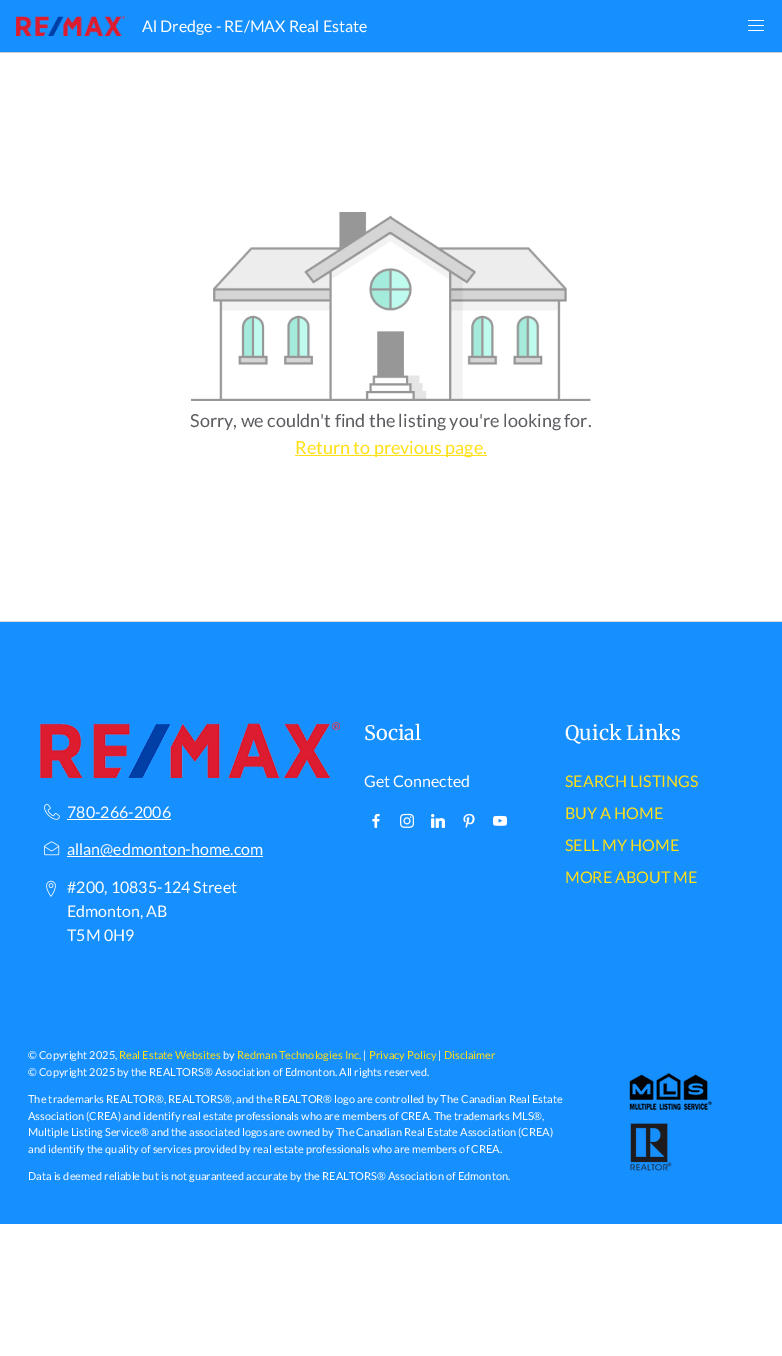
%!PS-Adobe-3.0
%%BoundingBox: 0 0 782 1356
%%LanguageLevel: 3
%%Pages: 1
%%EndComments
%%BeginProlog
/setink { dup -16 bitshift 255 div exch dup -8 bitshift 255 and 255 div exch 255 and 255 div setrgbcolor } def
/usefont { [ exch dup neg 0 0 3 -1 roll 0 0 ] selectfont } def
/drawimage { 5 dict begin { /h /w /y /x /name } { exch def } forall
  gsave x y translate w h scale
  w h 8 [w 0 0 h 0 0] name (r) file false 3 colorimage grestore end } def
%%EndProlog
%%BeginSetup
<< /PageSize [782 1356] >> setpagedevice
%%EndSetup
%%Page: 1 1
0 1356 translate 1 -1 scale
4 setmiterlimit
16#FFFFFF setink
0 0 782 1356 rectfill
16#CCCCCC setink
0 52 782 1 rectfill
16#168FFF setink
0 0 782 52 rectfill
(img1.raw) 16 16 109 20 drawimage
/Lato-Regular 16 usefont
16#FFFFFF setink
142 32 moveto (Al Dredge - RE/MAX Real Estate) show
[
    [748 20 16 1 16#FFFFFF]
    [748 25 16 1 16#FFFFFF]
    [748 30 16 1 16#FFFFFF]
] { aload pop setink rectfill } forall
(img2.raw) 191 212 400 189 drawimage
/Lato-Regular 18 usefont
16#5D5C61 setink
190 427 moveto (Sorry, we couldn't find the listing you're looking for.) show
16#FFE016 setink
295 455 192 1 rectfill
295 454 moveto (Return to previous page.) show
16#DBDBDB setink
0 621 782 1 rectfill
16#168FFF setink
0 622 782 602 rectfill
(img3.raw) 40 722 300 56 drawimage
(img4.raw) 44 803 16 17 drawimage
/Lato-Regular 16 usefont
16#FFFFFF setink
67 818 moveto (780-266-2006) show
67 819 104 1 rectfill
(img5.raw) 44 841 16 15 drawimage
67 856 196 1 rectfill
67 855 moveto (allan@edmonton-home.com) show
(img6.raw) 46 880 10 17 drawimage
[
    [(#200, 10835-124 Street) 67 893]
    [(Edmonton, AB) 67 917]
    [(T5M 0H9) 67 941]
] { aload pop moveto show } forall
/Merriweather-Light 20 usefont
364 740 moveto (Social) show
/Lato-Regular 16 usefont
364 787 moveto (Get Connected) show
(img7.raw) 372 813 8 15 drawimage
(img8.raw) 400 813 14 15 drawimage
(img9.raw) 431 813 14 15 drawimage
(img10.raw) 463 813 12 15 drawimage
(img11.raw) 493 815 14 11 drawimage
/Merriweather-Light 20 usefont
565 740 moveto (Quick Links) show
/Lato-Regular 16 usefont
16#FFE016 setink
[
    [(SEARCH LISTINGS) 565 787]
    [(BUY A HOME) 565 819]
    [(SELL MY HOME) 565 851]
    [(MORE ABOUT ME) 565 883]
] { aload pop moveto show } forall
/Lato-Regular 11 usefont
16#FFFFFF setink
28 1059 moveto (© Copyright 2025,) show
16#FFE016 setink
119 1059 moveto (Real Estate Websites) show
16#FFFFFF setink
223 1059 moveto (by) show
16#FFE016 setink
237 1059 moveto (Redman Technologies Inc.) show
16#FFFFFF setink
363 1059 moveto (|) show
16#FFE016 setink
369 1059 moveto (Privacy Policy) show
16#FFFFFF setink
438 1059 moveto (|) show
16#FFE016 setink
444 1059 moveto (Disclaimer) show
16#FFFFFF setink
[
    [(© Copyright 2025 by the REALTORS® Association of Edmonton. All rights reserved.) 28 1076]
    [(The trademarks REALTOR®, REALTORS®, and the REALTOR® logo are controlled by The Canadian Real Estate) 28 1103]
    [(Association \(CREA\) and identify real estate professionals who are members of CREA. The trademarks MLS®,) 28 1120]
    [(Multiple Listing Service® and the associated logos are owned by The Canadian Real Estate Association \(CREA\)) 28 1136]
    [(and identify the quality of services provided by real estate professionals who are members of CREA.) 28 1153]
    [(Data is deemed reliable but is not guaranteed accurate by the REALTORS® Association of Edmonton.) 28 1180]
] { aload pop moveto show } forall
(img12.raw) 629 1071 83 39 drawimage
(img13.raw) 630 1123 42 48 drawimage
showpage
%%EOF
